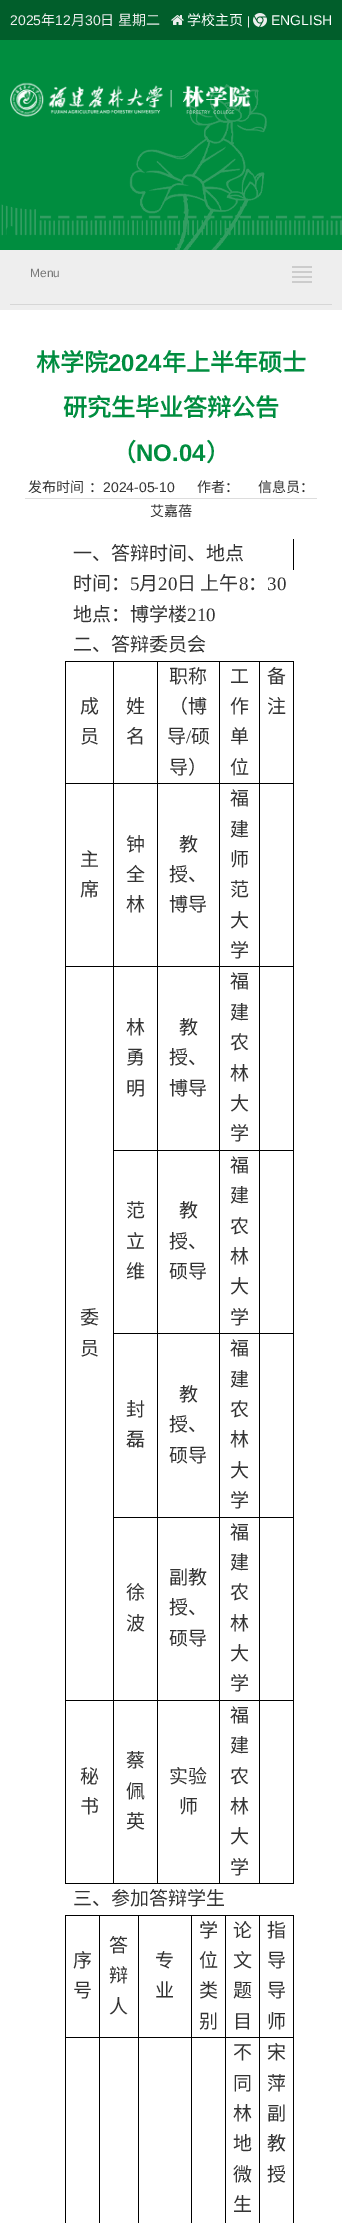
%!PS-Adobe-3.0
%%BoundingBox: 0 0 342 2223
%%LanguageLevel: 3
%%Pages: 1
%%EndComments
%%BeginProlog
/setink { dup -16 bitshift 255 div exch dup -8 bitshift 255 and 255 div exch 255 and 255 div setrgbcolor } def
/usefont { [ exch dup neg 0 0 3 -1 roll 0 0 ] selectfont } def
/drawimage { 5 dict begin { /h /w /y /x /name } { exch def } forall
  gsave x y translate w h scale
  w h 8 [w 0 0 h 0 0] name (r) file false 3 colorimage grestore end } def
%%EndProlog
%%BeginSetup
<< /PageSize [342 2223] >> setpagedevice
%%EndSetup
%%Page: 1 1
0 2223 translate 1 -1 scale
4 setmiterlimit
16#FFFFFF setink
0 0 342 2223 rectfill
16#015E2B setink
0 0 342 40 rectfill
/LiberationSans-Regular 14 usefont
16#EEEEEE setink
10 25 moveto (2025) show
/NotoSansCJKSC-Regular 14 usefont
41 25 moveto (年) show
/LiberationSans-Regular 14 usefont
55 25 moveto (12) show
/NotoSansCJKSC-Regular 14 usefont
71 25 moveto (月) show
/LiberationSans-Regular 14 usefont
85 25 moveto (30) show
/NotoSansCJKSC-Regular 14 usefont
100 25 moveto 1 0 32 (日 星期二) widthshow
(img1.raw) 171 15 13 10 drawimage
16#FFFFFF setink
187 25 moveto (学校主页) show
/LiberationSans-Regular 12 usefont
16#EEEEEE setink
247 25 moveto (|) show
(img2.raw) 253 13 14 14 drawimage
/LiberationSans-Regular 14 usefont
16#FFFFFF setink
271 25 moveto (ENGLISH) show
16#008D3F setink
0 40 342 210 rectfill
(img3.raw) 1 84 341 166 drawimage
(img4.raw) 10 82 241 35 drawimage
16#EEEEEE setink
0 250 342 60 rectfill
16#D6D6D6 setink
10 304 322 1 rectfill
/LiberationSans-Regular 12 usefont
16#777777 setink
30 277 moveto (Menu) show
[
    [292 266 20 2 16#CCCCCC]
    [292 271 20 2 16#CCCCCC]
    [292 276 20 2 16#CCCCCC]
    [292 281 20 2 16#CCCCCC]
] { aload pop setink rectfill } forall
/NotoSansCJKSC-Bold 24 usefont
16#008D3F setink
36 371 moveto (林学院) show
/LiberationSans-Bold 24 usefont
108 371 moveto (2024) show
/NotoSansCJKSC-Bold 24 usefont
[
    [(年上半年硕士) 162 371]
    [(研究生毕业答辩公告) 63 416]
    [(（) 112 461]
] { aload pop moveto show } forall
/LiberationSans-Bold 24 usefont
136 461 moveto (NO.04) show
/NotoSansCJKSC-Bold 24 usefont
206 461 moveto (）) show
16#DDDDDD setink
25 498 292 1 rectfill
/NotoSansCJKSC-Regular 14 usefont
16#333333 setink
28 492 moveto (发布时间) show
89 492 moveto (：) show
/LiberationSans-Regular 14 usefont
103 492 moveto (2024-05-10) show
/NotoSansCJKSC-Regular 14 usefont
[
    [(作者：) 197 492]
    [(信息员：) 258 492]
    [(艾嘉蓓) 150 516]
] { aload pop moveto show } forall
16#000000 setink
293 539 1 31 rectfill
/NotoSansCJKSC-Regular 19 usefont
16#333333 setink
73 560 moveto (一、答辩时间、地点) show
73 590 moveto (时间：) show
/LiberationSerif-Regular 19 usefont
130 590 moveto (5) show
/NotoSansCJKSC-Regular 19 usefont
139 590 moveto (月) show
/LiberationSerif-Regular 19 usefont
158 590 moveto (20) show
/NotoSansCJKSC-Regular 19 usefont
177 590 moveto (日 上午) show
/LiberationSerif-Regular 19 usefont
239 590 moveto (8) show
/NotoSansCJKSC-Regular 19 usefont
248 590 moveto (：) show
/LiberationSerif-Regular 19 usefont
267 590 moveto (30) show
/NotoSansCJKSC-Regular 19 usefont
73 621 moveto (地点：博学楼) show
/LiberationSerif-Regular 19 usefont
187 621 moveto (210) show
[
    [293 661 1 1223 16#000000]
    [259 1883 35 1 16#000000]
    [259 1700 1 184 16#000000]
    [259 1700 35 1 16#000000]
    [259 1517 1 184 16#000000]
    [259 1517 35 1 16#000000]
    [259 1333 1 185 16#000000]
    [259 1333 35 1 16#000000]
    [259 1150 1 184 16#000000]
    [259 1150 35 1 16#000000]
    [259 966 1 185 16#000000]
    [259 966 35 1 16#000000]
    [259 783 1 184 16#000000]
    [259 783 35 1 16#000000]
    [259 661 1 123 16#000000]
    [219 1883 41 1 16#000000]
    [219 1700 1 184 16#000000]
    [219 1700 41 1 16#000000]
    [219 1517 1 184 16#000000]
    [219 1517 41 1 16#000000]
    [219 1333 1 185 16#000000]
    [219 1333 41 1 16#000000]
    [219 1150 1 184 16#000000]
    [219 1150 41 1 16#000000]
    [219 966 1 185 16#000000]
    [219 966 41 1 16#000000]
    [219 783 1 184 16#000000]
    [219 783 41 1 16#000000]
    [219 661 1 123 16#000000]
    [157 1883 63 1 16#000000]
    [157 1700 1 184 16#000000]
    [157 1700 63 1 16#000000]
    [157 1517 1 184 16#000000]
    [157 1517 63 1 16#000000]
    [157 1333 1 185 16#000000]
    [157 1333 63 1 16#000000]
    [157 1150 1 184 16#000000]
    [157 1150 63 1 16#000000]
    [157 966 1 185 16#000000]
    [157 966 63 1 16#000000]
    [157 783 1 184 16#000000]
    [157 783 63 1 16#000000]
    [157 661 1 123 16#000000]
    [113 1883 45 1 16#000000]
    [113 1700 1 184 16#000000]
    [113 1700 45 1 16#000000]
    [113 1517 1 184 16#000000]
    [113 1517 45 1 16#000000]
    [113 1333 1 185 16#000000]
    [113 1333 45 1 16#000000]
    [113 1150 1 184 16#000000]
    [113 1150 45 1 16#000000]
    [113 966 1 185 16#000000]
    [113 966 45 1 16#000000]
    [113 783 1 184 16#000000]
    [113 783 45 1 16#000000]
    [113 661 1 123 16#000000]
    [65 1883 49 1 16#000000]
    [65 1700 1 184 16#000000]
    [65 1700 49 1 16#000000]
    [65 966 1 735 16#000000]
    [65 966 49 1 16#000000]
    [65 783 1 184 16#000000]
    [65 783 49 1 16#000000]
    [65 661 1 123 16#000000]
    [65 661 229 1 16#000000]
] { aload pop setink rectfill } forall
/NotoSansCJKSC-Regular 19 usefont
16#333333 setink
[
    [(二、答辩委员会) 73 651]
    [(成) 80 713]
    [(员) 80 743]
    [(姓) 126 713]
    [(名) 126 743]
    [(职称) 169 683]
    [(（博) 169 713]
    [(导) 167 743]
] { aload pop moveto show } forall
/LiberationSerif-Regular 19 usefont
186 743 moveto (/) show
/NotoSansCJKSC-Regular 19 usefont
[
    [(硕) 191 743]
    [(导）) 169 774]
    [(工) 230 683]
    [(作) 230 713]
    [(单) 230 743]
    [(位) 230 774]
    [(备) 267 683]
    [(注) 267 713]
    [(主) 80 866]
    [(席) 80 896]
    [(钟) 126 851]
    [(全) 126 881]
    [(林) 126 911]
    [(教) 179 851]
    [(授、) 169 881]
    [(博导) 169 911]
    [(福) 230 805]
    [(建) 230 836]
    [(师) 230 866]
    [(范) 230 896]
    [(大) 230 927]
    [(学) 230 957]
    [(林) 126 1034]
    [(勇) 126 1064]
    [(明) 126 1095]
    [(教) 179 1034]
    [(授、) 169 1064]
    [(博导) 169 1095]
    [(福) 230 988]
    [(建) 230 1019]
    [(农) 230 1049]
    [(林) 230 1080]
    [(大) 230 1110]
    [(学) 230 1140]
    [(委) 80 1324]
    [(员) 80 1355]
    [(范) 126 1217]
    [(立) 126 1248]
    [(维) 126 1278]
    [(教) 179 1217]
    [(授、) 169 1248]
    [(硕导) 169 1278]
    [(福) 230 1172]
    [(建) 230 1202]
    [(农) 230 1233]
    [(林) 230 1263]
    [(大) 230 1293]
    [(学) 230 1324]
    [(封) 126 1416]
    [(磊) 126 1446]
    [(教) 179 1401]
    [(授、) 169 1431]
    [(硕导) 169 1462]
    [(福) 230 1355]
    [(建) 230 1386]
    [(农) 230 1416]
    [(林) 230 1446]
    [(大) 230 1477]
    [(学) 230 1507]
    [(徐) 126 1599]
    [(波) 126 1630]
    [(副教) 169 1584]
    [(授、) 169 1614]
    [(硕导) 169 1645]
    [(福) 230 1539]
    [(建) 230 1569]
    [(农) 230 1599]
    [(林) 230 1630]
    [(大) 230 1660]
    [(学) 230 1690]
    [(秘) 80 1783]
    [(书) 80 1813]
    [(蔡) 126 1767]
    [(佩) 126 1798]
    [(英) 126 1828]
    [(实验) 169 1783]
    [(师) 179 1813]
    [(福) 230 1722]
    [(建) 230 1752]
    [(农) 230 1783]
    [(林) 230 1813]
    [(大) 230 1843]
    [(学) 230 1874]
] { aload pop moveto show } forall
[
    [259 1915 35 1 16#000000]
    [293 2037 1 186 16#000000]
    [293 1915 1 123 16#000000]
    [259 2037 1 186 16#000000]
    [259 2037 35 1 16#000000]
    [259 1915 1 123 16#000000]
    [225 2037 1 186 16#000000]
    [225 2037 35 1 16#000000]
    [225 1915 1 123 16#000000]
    [191 2037 1 186 16#000000]
    [191 2037 35 1 16#000000]
    [191 1915 1 123 16#000000]
    [138 2037 1 186 16#000000]
    [138 2037 54 1 16#000000]
    [138 1915 1 123 16#000000]
    [99 2037 1 186 16#000000]
    [99 2037 40 1 16#000000]
    [99 1915 1 123 16#000000]
    [65 2037 1 186 16#000000]
    [65 2037 35 1 16#000000]
    [65 1915 1 123 16#000000]
    [65 1915 195 1 16#000000]
] { aload pop setink rectfill } forall
16#333333 setink
[
    [(三、参加答辩学生) 73 1905]
    [(序) 73 1967]
    [(号) 73 1997]
    [(答) 109 1952]
    [(辩) 109 1982]
    [(人) 109 2013]
    [(专) 155 1967]
    [(业) 155 1997]
    [(学) 199 1937]
    [(位) 199 1967]
    [(类) 199 1997]
    [(别) 199 2028]
    [(论) 233 1937]
    [(文) 233 1967]
    [(题) 233 1997]
    [(目) 233 2028]
    [(指) 267 1937]
    [(导) 267 1967]
    [(导) 267 1997]
    [(师) 267 2028]
    [(不) 233 2059]
    [(同) 233 2090]
    [(林) 233 2120]
    [(地) 233 2150]
    [(微) 233 2181]
    [(生) 233 2211]
    [(宋) 267 2059]
    [(萍) 267 2090]
    [(副) 267 2120]
    [(教) 267 2150]
    [(授) 267 2181]
] { aload pop moveto show } forall
showpage
%%EOF
